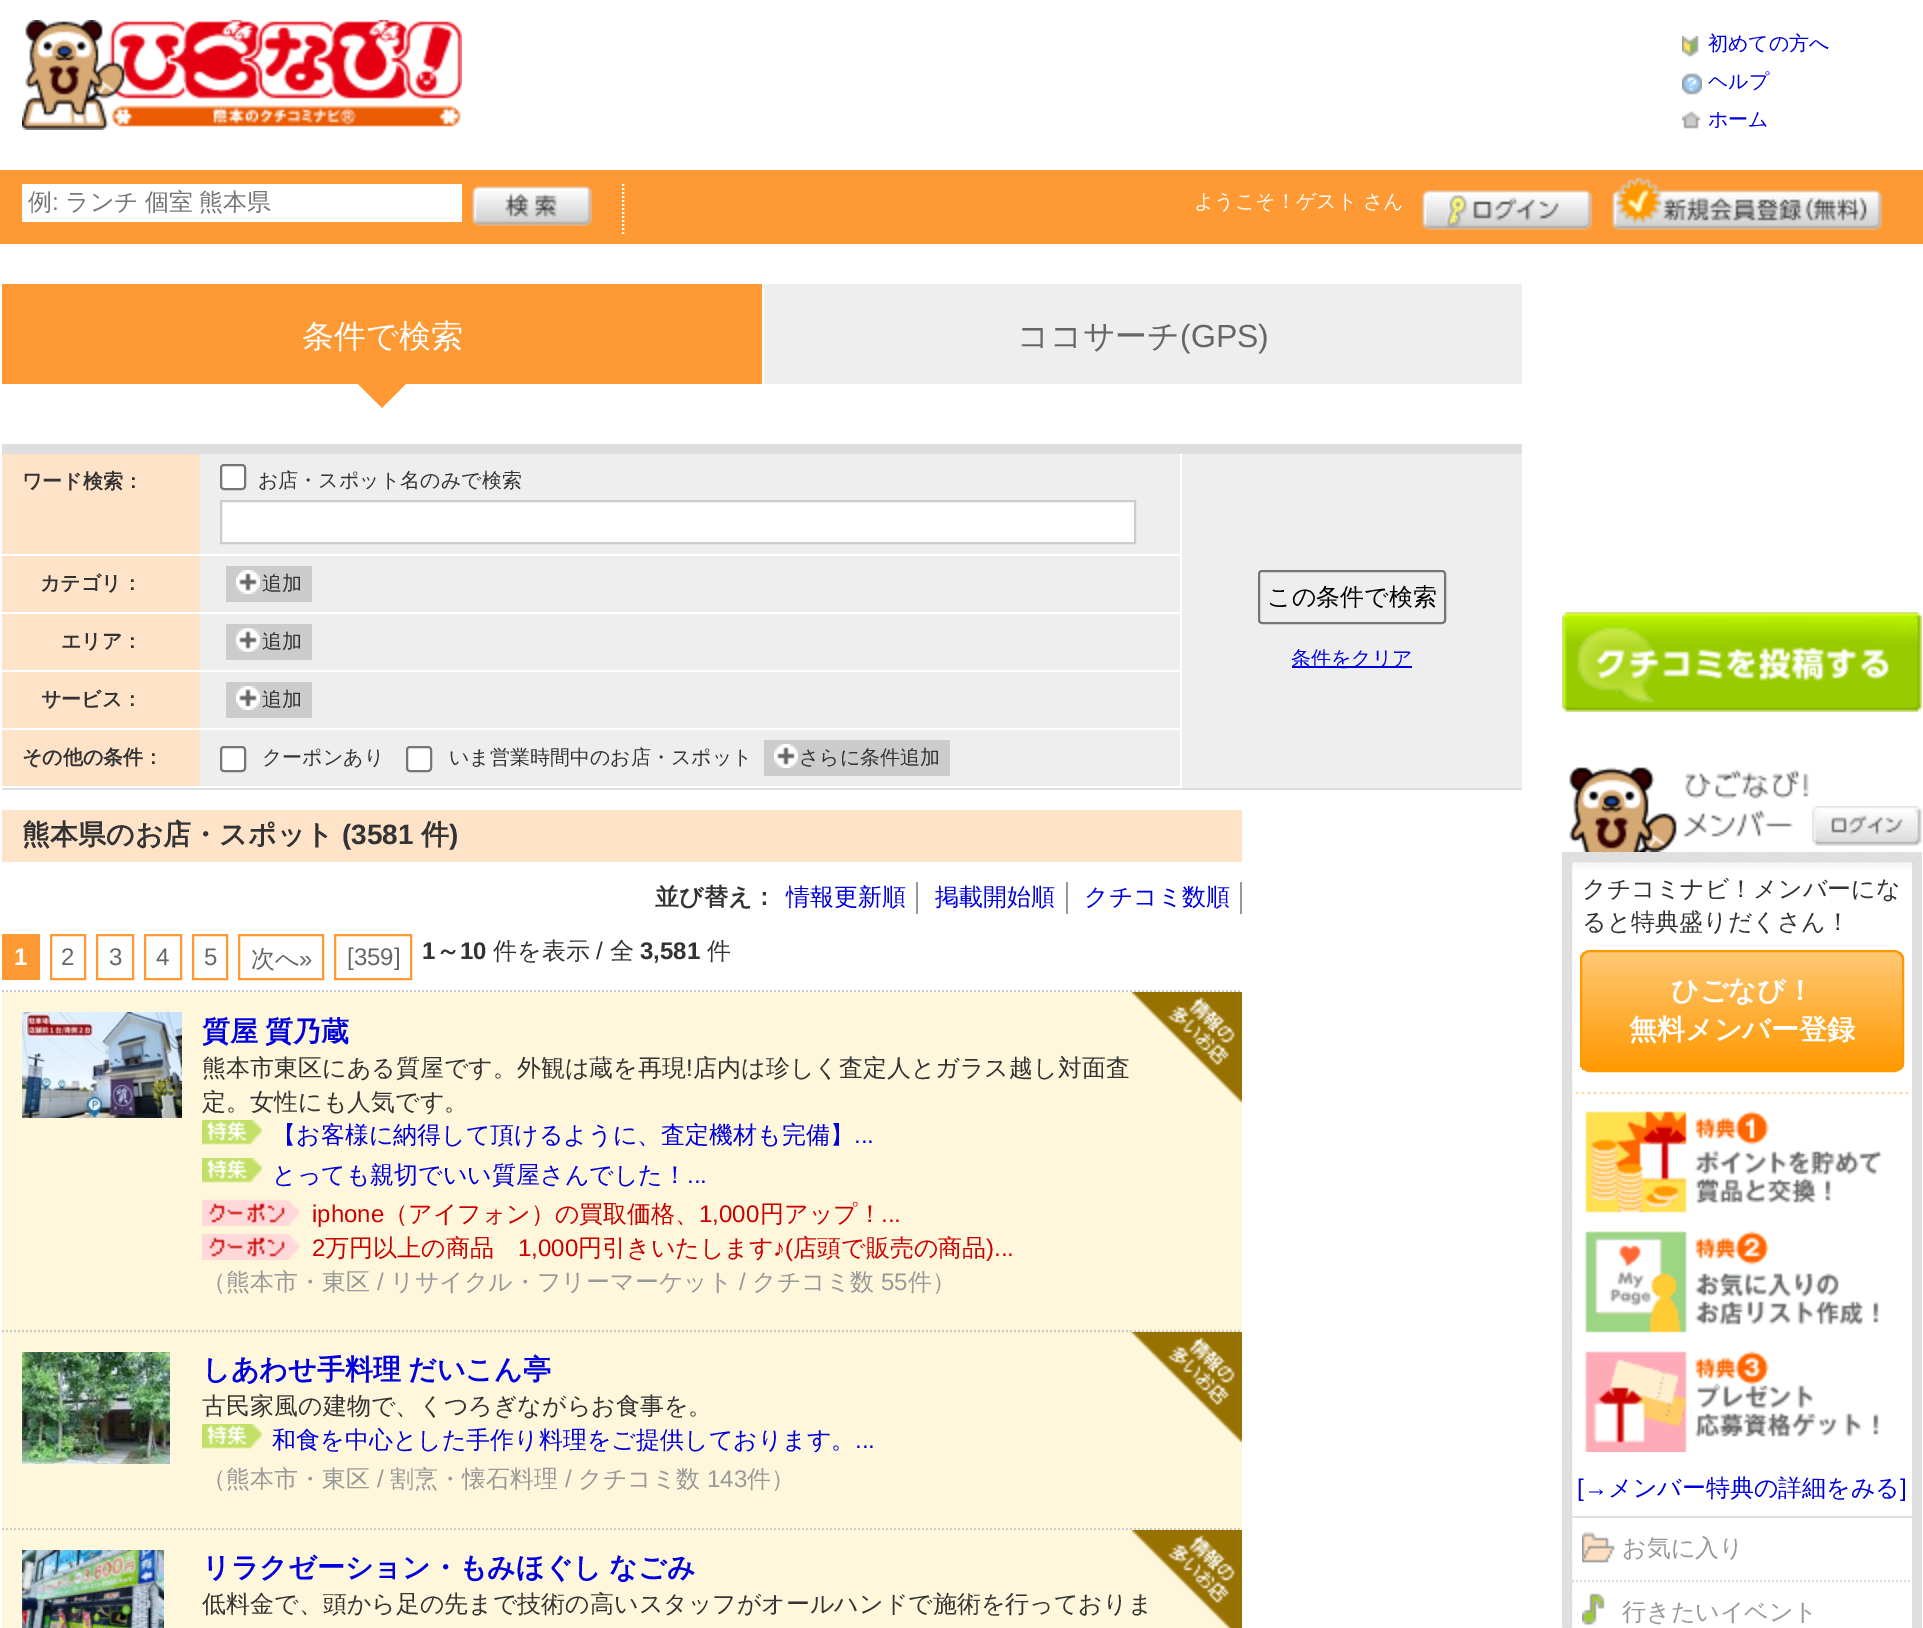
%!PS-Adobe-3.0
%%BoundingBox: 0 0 1923 1628
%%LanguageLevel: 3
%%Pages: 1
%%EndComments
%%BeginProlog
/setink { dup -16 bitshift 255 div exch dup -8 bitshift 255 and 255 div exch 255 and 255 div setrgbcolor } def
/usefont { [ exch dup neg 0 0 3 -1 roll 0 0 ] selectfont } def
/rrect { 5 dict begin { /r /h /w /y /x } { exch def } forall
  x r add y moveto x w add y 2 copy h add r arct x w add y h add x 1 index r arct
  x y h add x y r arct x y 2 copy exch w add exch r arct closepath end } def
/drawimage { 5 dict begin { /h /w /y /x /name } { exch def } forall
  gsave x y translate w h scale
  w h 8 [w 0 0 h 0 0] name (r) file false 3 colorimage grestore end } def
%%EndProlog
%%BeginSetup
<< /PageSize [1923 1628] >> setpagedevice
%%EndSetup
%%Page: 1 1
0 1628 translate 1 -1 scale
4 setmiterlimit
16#FFFFFF setink
0 0 1923 1628 rectfill
(img1.raw) 22 20 440 110 drawimage
(img2.raw) 1682 36 17 21 drawimage
/WenQuanYiZenHei-Medium 20 usefont
16#0000DE setink
1708 50 moveto (初めての方へ) show
(img3.raw) 1682 73 20 22 drawimage
1708 88 moveto (ヘルプ) show
(img4.raw) 1682 111 19 18 drawimage
1708 126 moveto (ホーム) show
16#FF9933 setink
0 170 1923 74 rectfill
16#FFFFFF setink
2 setlinewidth
[2 2] 0 setdash
623 184 moveto 623 236 lineto stroke
22 184 440 38 rectfill
/WenQuanYiZenHei-Medium 24 usefont
16#757575 setink
28 210 moveto (例) show
/LiberationSans-Regular 24 usefont
52 210 moveto (:) show
/WenQuanYiZenHei-Medium 24 usefont
65 210 moveto -1 0 32 (ランチ 個室 熊本県) widthshow
(img5.raw) 472 186 120 40 drawimage
/WenQuanYiZenHei-Medium 20 usefont
16#FFFFFF setink
1194 208 moveto (ようこそ！ゲスト) show
1363 208 moveto (さん) show
(img6.raw) 1422 190 170 40 drawimage
(img7.raw) 1612 178 270 52 drawimage
16#FF9933 setink
2 284 760 100 rectfill
/WenQuanYiZenHei-Medium 32 usefont
16#FFFFFF setink
302 347 moveto (条件で検索) show
16#FF9933 setink
354 380 moveto 382 352 lineto 410 380 lineto 382 408 lineto closepath fill
16#EEEEEE setink
764 284 758 100 rectfill
16#FCFCFC setink
762 284 2 100 rectfill
16#666666 setink
1017 347 moveto (ココサーチ) show
/LiberationSans-Regular 32 usefont
1180 347 moveto (\(GPS\)) show
[
    [1182 454 340 334 16#EEEEEE]
    [2 444 1520 10 16#DEDEDE]
    [2 788 1520 2 16#DEDEDE]
    [2 454 198 332 16#FFE3C8]
    [2 554 198 2 16#FFFFFF]
] { aload pop setink rectfill } forall
/WenQuanYiZenHei-Bold 20 usefont
16#333333 setink
22 488 moveto (ワード検索：) show
16#EEEEEE setink
200 454 980 100 rectfill
16#FFFFFF setink
221 465 24 24 3 rrect gsave fill grestore
16#767676 setink
[] 0 setdash
stroke
/WenQuanYiZenHei-Medium 20 usefont
16#333333 setink
258 487 moveto (お店・スポット名のみで検索) show
16#FFFFFF setink
221 501 moveto 1135 501 lineto 1135 543 lineto 221 543 lineto closepath gsave fill grestore
16#CCCCCC setink
stroke
16#FFFFFF setink
2 612 198 2 rectfill
/WenQuanYiZenHei-Bold 20 usefont
16#333333 setink
40 590 moveto (カテゴリ：) show
16#EEEEEE setink
200 556 980 56 rectfill
16#CCCCCC setink
226 566 86 36 rectfill
(img8.raw) 236 570 24 24 drawimage
/WenQuanYiZenHei-Medium 20 usefont
16#333333 setink
262 590 moveto (追加) show
16#FFFFFF setink
2 670 198 2 rectfill
/WenQuanYiZenHei-Bold 20 usefont
16#333333 setink
61 648 moveto (エリア：) show
16#EEEEEE setink
200 614 980 56 rectfill
16#CCCCCC setink
226 624 86 36 rectfill
(img8.raw) 236 628 24 24 drawimage
/WenQuanYiZenHei-Medium 20 usefont
16#333333 setink
262 648 moveto (追加) show
16#FFFFFF setink
2 728 198 2 rectfill
/WenQuanYiZenHei-Bold 20 usefont
16#333333 setink
41 706 moveto (サービス：) show
16#EEEEEE setink
200 672 980 56 rectfill
16#CCCCCC setink
226 682 86 36 rectfill
(img8.raw) 236 686 24 24 drawimage
/WenQuanYiZenHei-Medium 20 usefont
16#333333 setink
262 706 moveto (追加) show
/WenQuanYiZenHei-Bold 20 usefont
22 764 moveto (その他の条件：) show
16#EEEEEE setink
200 730 980 56 rectfill
16#FFFFFF setink
221 747 24 24 3 rrect gsave fill grestore
16#767676 setink
stroke
/WenQuanYiZenHei-Medium 20 usefont
16#333333 setink
262 764 moveto (クーポンあり) show
16#FFFFFF setink
407 747 24 24 3 rrect gsave fill grestore
16#767676 setink
stroke
16#333333 setink
449 764 moveto (いま営業時間中のお店・スポット) show
16#CCCCCC setink
764 740 186 36 rectfill
(img8.raw) 774 744 24 24 drawimage
16#333333 setink
799 764 moveto (さらに条件追加) show
16#767676 setink
1259 571 186 52 3 rrect stroke
/WenQuanYiZenHei-Medium 24 usefont
16#000000 setink
1267 605 moveto (この条件で検索) show
16#0000DE setink
1292 666 120 2 rectfill
/WenQuanYiZenHei-Medium 20 usefont
1291 665 moveto (条件をクリア) show
16#FFE3C8 setink
2 810 1240 52 rectfill
/WenQuanYiZenHei-Bold 28 usefont
16#333333 setink
22 844 moveto (熊本県のお店・スポット) show
/LiberationSans-Bold 28 usefont
342 844 moveto (\(3581) show
/WenQuanYiZenHei-Bold 28 usefont
421 844 moveto (件) show
/LiberationSans-Bold 28 usefont
449 844 moveto (\)) show
/WenQuanYiZenHei-Bold 24 usefont
655 905 moveto (並び替え：) show
16#999999 setink
916 882 2 32 rectfill
/WenQuanYiZenHei-Medium 24 usefont
16#0000DE setink
786 905 moveto (情報更新順) show
16#999999 setink
1066 882 2 32 rectfill
16#0000DE setink
935 905 moveto (掲載開始順) show
16#999999 setink
1240 882 2 32 rectfill
16#0000DE setink
1084 905 moveto (クチコミ数順) show
16#FF9933 setink
2 934 38 46 rectfill
/LiberationSans-Bold 24 usefont
16#FFFFFF setink
14 965 moveto (1) show
16#FF9933 setink
51 935 34 44 rectstroke
/LiberationSans-Regular 24 usefont
16#666666 setink
61 965 moveto (2) show
16#FF9933 setink
97 935 36 44 rectstroke
16#666666 setink
109 965 moveto (3) show
16#FF9933 setink
145 935 36 44 rectstroke
16#666666 setink
156 965 moveto (4) show
16#FF9933 setink
193 935 34 44 rectstroke
16#666666 setink
204 965 moveto (5) show
16#FF9933 setink
239 935 84 44 rectstroke
/WenQuanYiZenHei-Medium 24 usefont
16#666666 setink
251 967 moveto (次へ) show
/LiberationSans-Regular 24 usefont
299 967 moveto (») show
16#FF9933 setink
335 935 76 44 rectstroke
16#666666 setink
347 965 moveto ([359]) show
/LiberationSans-Bold 24 usefont
16#333333 setink
422 959 moveto (1) show
/WenQuanYiZenHei-Bold 24 usefont
436 959 moveto (～) show
/LiberationSans-Bold 24 usefont
460 959 moveto (10) show
/WenQuanYiZenHei-Medium 24 usefont
493 959 moveto (件を表示) show
/LiberationSans-Regular 24 usefont
596 959 moveto (/) show
/WenQuanYiZenHei-Medium 24 usefont
610 959 moveto (全) show
/LiberationSans-Bold 24 usefont
640 959 moveto (3,581) show
/WenQuanYiZenHei-Medium 24 usefont
707 959 moveto (件) show
16#CCCCCC setink
[2 2] 0 setdash
2 991 moveto 1242 991 lineto stroke
16#FFF7DB setink
2 992 1240 538 rectfill
(img9.raw) 1132 992 110 110 drawimage
16#CCCCCC setink
2 1331 moveto 1242 1331 lineto stroke
(img10.raw) 22 1012 160 106 drawimage
/WenQuanYiZenHei-Bold 28 usefont
16#0000DE setink
202 1041 moveto -1 0 32 (質屋 質乃蔵) widthshow
/WenQuanYiZenHei-Medium 24 usefont
16#333333 setink
202 1076 moveto (熊本市東区にある質屋です。外観は蔵を再現) show
/LiberationSans-Regular 24 usefont
686 1076 moveto (!) show
/WenQuanYiZenHei-Medium 24 usefont
693 1076 moveto (店内は珍しく査定人とガラス越し対面査) show
202 1110 moveto (定。女性にも人気です。) show
(img11.raw) 202 1120 60 25 drawimage
16#0000DE setink
272 1143 moveto (【お客様に納得して頂けるように、査定機材も完備】) show
/LiberationSans-Regular 24 usefont
854 1143 moveto (...) show
(img11.raw) 202 1158 60 25 drawimage
/WenQuanYiZenHei-Medium 24 usefont
272 1183 moveto (とっても親切でいい質屋さんでした！) show
/LiberationSans-Regular 24 usefont
687 1183 moveto (...) show
(img12.raw) 202 1199 99 27 drawimage
16#CC0000 setink
312 1222 moveto (iphone) show
/WenQuanYiZenHei-Medium 24 usefont
384 1222 moveto (（アイフォン）の買取価格、) show
/LiberationSans-Regular 24 usefont
699 1222 moveto (1,000) show
/WenQuanYiZenHei-Medium 24 usefont
760 1222 moveto (円アップ！) show
/LiberationSans-Regular 24 usefont
881 1222 moveto (...) show
(img12.raw) 202 1233 99 27 drawimage
312 1256 moveto (2) show
/WenQuanYiZenHei-Medium 24 usefont
325 1256 moveto (万円以上の商品) show
/LiberationSans-Regular 24 usefont
518 1256 moveto (1,000) show
/WenQuanYiZenHei-Medium 24 usefont
578 1256 moveto (円引きいたします) show
/LiberationSans-Regular 24 usefont
773 1256 moveto (♪\() show
/WenQuanYiZenHei-Medium 24 usefont
793 1256 moveto (店頭で販売の商品) show
/LiberationSans-Regular 24 usefont
986 1256 moveto (\)...) show
/WenQuanYiZenHei-Medium 24 usefont
16#999999 setink
202 1290 moveto (（熊本市・東区) show
/LiberationSans-Regular 24 usefont
377 1290 moveto (/) show
/WenQuanYiZenHei-Medium 24 usefont
390 1290 moveto (リサイクル・フリーマーケット) show
/LiberationSans-Regular 24 usefont
739 1290 moveto (/) show
/WenQuanYiZenHei-Medium 24 usefont
752 1290 moveto (クチコミ数) show
/LiberationSans-Regular 24 usefont
881 1290 moveto (55) show
/WenQuanYiZenHei-Medium 24 usefont
908 1290 moveto (件）) show
(img9.raw) 1132 1332 110 110 drawimage
16#CCCCCC setink
2 1529 moveto 1242 1529 lineto stroke
(img13.raw) 22 1352 148 112 drawimage
/WenQuanYiZenHei-Bold 28 usefont
16#0000DE setink
202 1379 moveto -1 0 32 (しあわせ手料理 だいこん亭) widthshow
/WenQuanYiZenHei-Medium 24 usefont
16#333333 setink
202 1414 moveto (古民家風の建物で、くつろぎながらお食事を。) show
(img11.raw) 202 1424 60 25 drawimage
16#0000DE setink
272 1448 moveto (和食を中心とした手作り料理をご提供しております。) show
/LiberationSans-Regular 24 usefont
855 1448 moveto (...) show
/WenQuanYiZenHei-Medium 24 usefont
16#999999 setink
202 1487 moveto (（熊本市・東区) show
/LiberationSans-Regular 24 usefont
377 1487 moveto (/) show
/WenQuanYiZenHei-Medium 24 usefont
390 1487 moveto (割烹・懐石料理) show
/LiberationSans-Regular 24 usefont
565 1487 moveto (/) show
/WenQuanYiZenHei-Medium 24 usefont
578 1487 moveto (クチコミ数) show
/LiberationSans-Regular 24 usefont
707 1487 moveto (143) show
/WenQuanYiZenHei-Medium 24 usefont
747 1487 moveto (件）) show
16#FFF7DB setink
2 1530 1231 98 rectfill
(img14.raw) 1132 1530 110 98 drawimage
(img15.raw) 22 1550 142 78 drawimage
/WenQuanYiZenHei-Bold 28 usefont
16#0000DE setink
202 1577 moveto -1 0 32 (リラクゼーション・もみほぐし なごみ) widthshow
/WenQuanYiZenHei-Medium 24 usefont
16#333333 setink
202 1612 moveto (低料金で、頭から足の先まで技術の高いスタッフがオールハンドで施術を行っておりま) show
(img16.raw) 1562 612 360 100 drawimage
(img17.raw) 1562 852 360 776 drawimage
(img18.raw) 1562 752 360 100 drawimage
gsave 1572 862 moveto 1912 862 lineto 1912 1628 lineto 1572 1628 lineto closepath clip newpath
<< /ShadingType 2 /ColorSpace /DeviceRGB /Coords [1742 862 1742 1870] /Extend [true true] /Function << /FunctionType 3 /Domain [0 1] /Functions [<< /FunctionType 2 /Domain [0 1] /C0 [0.961 0.961 0.961] /C1 [1 1 1] /N 1 >> << /FunctionType 2 /Domain [0 1] /C0 [1 1 1] /C1 [1 1 1] /N 1 >>] /Bounds [0.01] /Encode [0 1 0 1] >> >> shfill grestore
16#DEDEDE setink
[] 0 setdash
1571 861 342 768 rectstroke
16#333333 setink
1582 897 moveto (クチコミナビ！メンバーにな) show
1582 930 moveto (ると特典盛りだくさん！) show
gsave
1580 950 324 122 10 rrect clip newpath
gsave 1580 952 moveto 1904 952 lineto 1904 1070 lineto 1580 1070 lineto closepath clip newpath
<< /ShadingType 2 /ColorSpace /DeviceRGB /Coords [1742 952 1742 1070] /Extend [true true] /Function << /FunctionType 2 /Domain [0 1] /C0 [1 0.784 0.459] /C1 [1 0.6 0] /N 1 >> >> shfill grestore
grestore
16#FF9900 setink
1581 951 322 120 9 rrect stroke
/WenQuanYiZenHei-Bold 28 usefont
16#FFFFFF setink
1671 1000 moveto (ひごなび！) show
1629 1039 moveto (無料メンバー登録) show
16#DFDFDF setink
1572 1516 340 2 rectfill
(img19.raw) 1575 1092 334 360 drawimage
/LiberationSans-Regular 24 usefont
16#0000DE setink
1577 1496 moveto ([→) show
/WenQuanYiZenHei-Medium 24 usefont
1608 1496 moveto (メンバー特典の詳細をみる) show
/LiberationSans-Regular 24 usefont
1900 1496 moveto (]) show
(img20.raw) 1812 806 110 40 drawimage
(img21.raw) 1582 1532 33 31 drawimage
16#DEDEDE setink
[2 2] 0 setdash
1572 1581 moveto 1912 1581 lineto stroke
/WenQuanYiZenHei-Medium 24 usefont
16#999999 setink
1622 1556 moveto (お気に入り) show
(img22.raw) 1582 1593 23 32 drawimage
1622 1620 moveto (行きたいイベント) show
showpage
%%EOF
